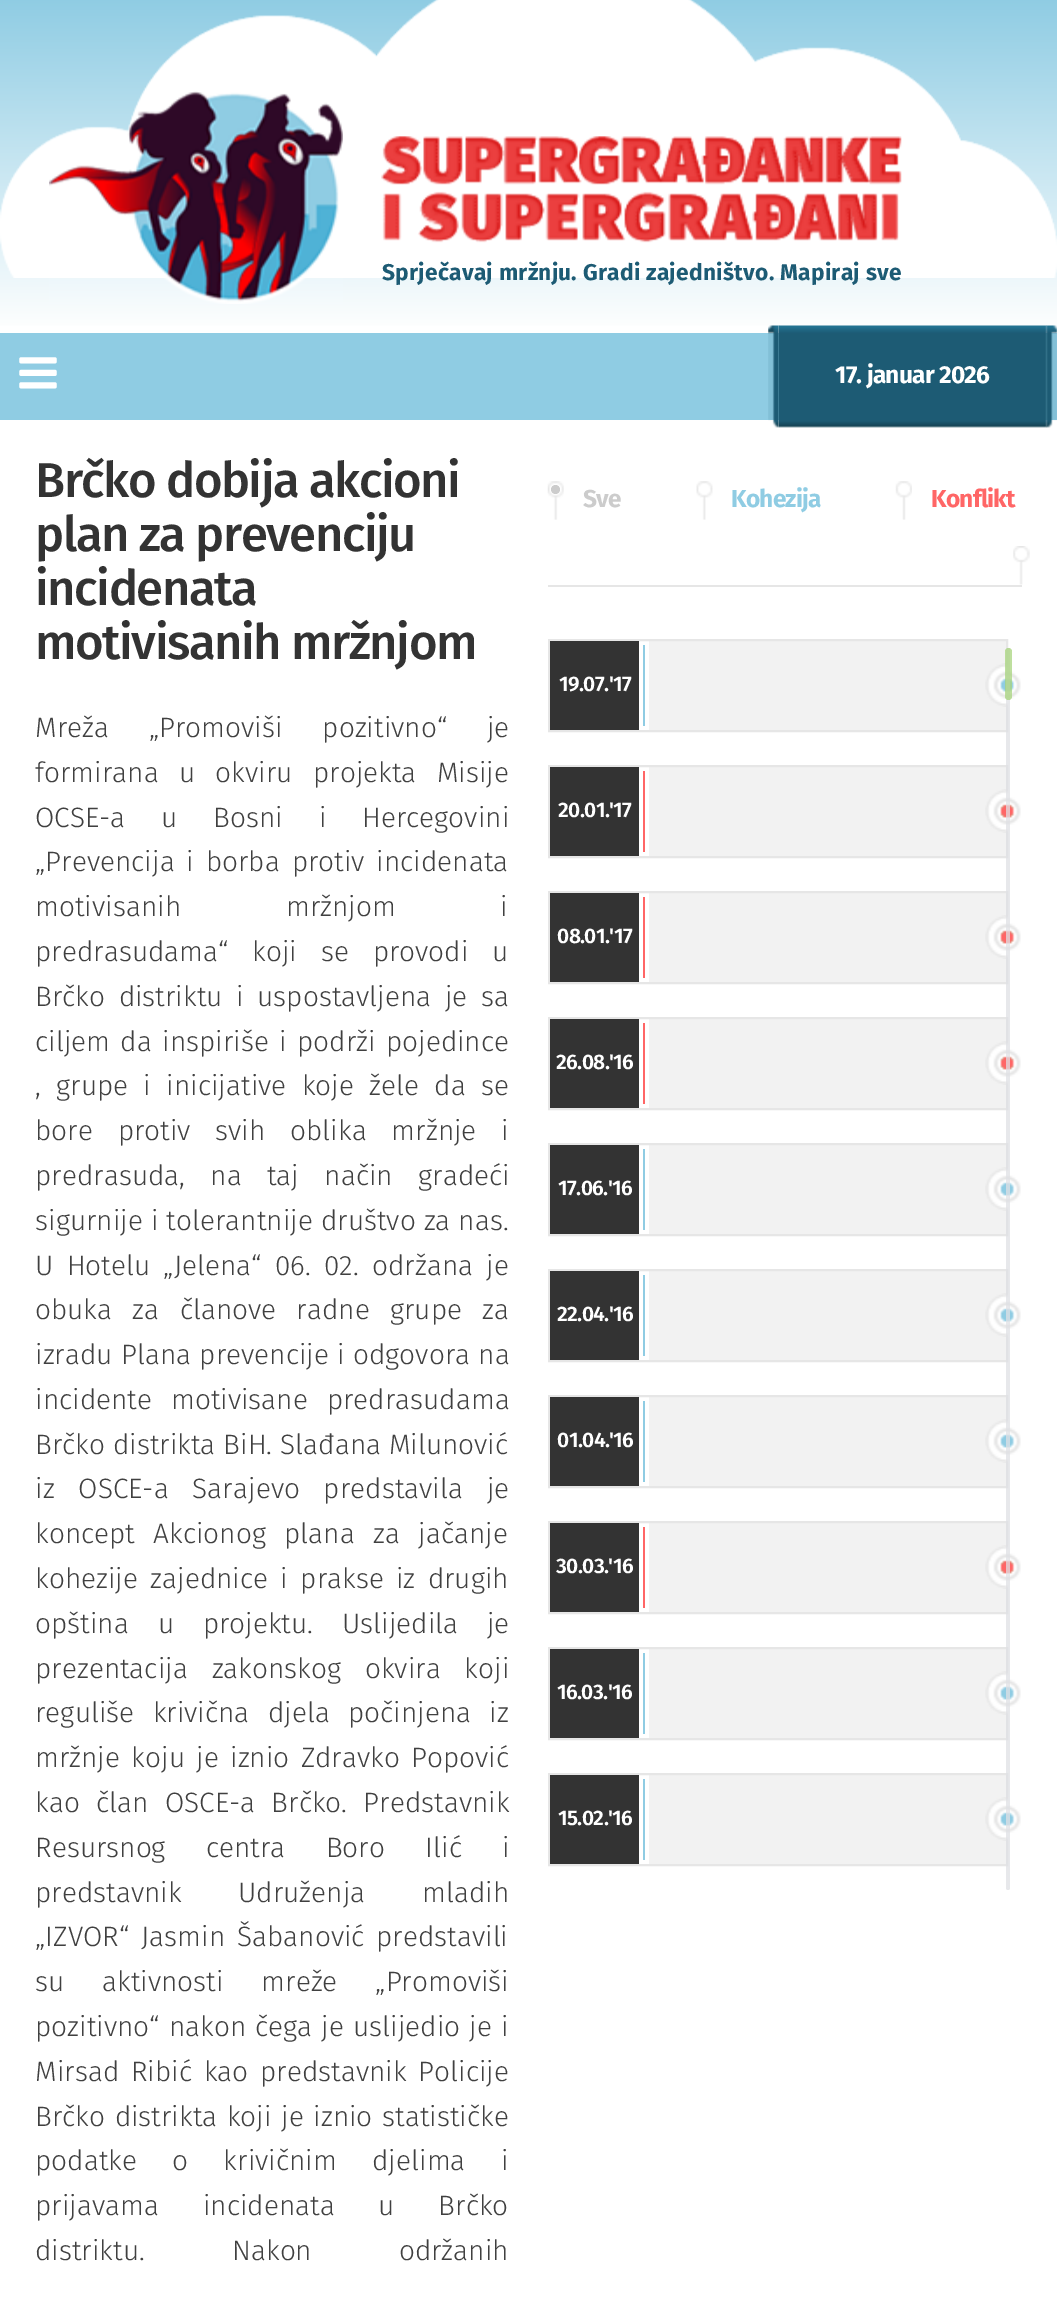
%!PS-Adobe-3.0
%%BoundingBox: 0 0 1057 2298
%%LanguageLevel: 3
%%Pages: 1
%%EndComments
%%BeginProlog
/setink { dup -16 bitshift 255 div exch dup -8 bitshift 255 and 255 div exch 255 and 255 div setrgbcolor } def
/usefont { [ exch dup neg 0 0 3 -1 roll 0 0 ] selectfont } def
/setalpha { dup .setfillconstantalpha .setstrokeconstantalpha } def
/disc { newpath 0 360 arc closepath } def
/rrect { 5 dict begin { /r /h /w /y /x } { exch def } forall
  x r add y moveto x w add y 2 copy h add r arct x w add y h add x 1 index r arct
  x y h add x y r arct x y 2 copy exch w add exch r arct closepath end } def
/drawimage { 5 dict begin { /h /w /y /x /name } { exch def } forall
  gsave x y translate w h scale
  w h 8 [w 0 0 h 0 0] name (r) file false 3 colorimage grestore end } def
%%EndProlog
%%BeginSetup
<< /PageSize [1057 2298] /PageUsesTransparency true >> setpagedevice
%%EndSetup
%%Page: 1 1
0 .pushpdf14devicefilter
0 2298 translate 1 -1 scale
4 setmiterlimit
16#FFFFFF setink
0 0 1057 2298 rectfill
gsave 0 0 moveto 1057 0 lineto 1057 326 lineto 0 326 lineto closepath clip newpath
<< /ShadingType 2 /ColorSpace /DeviceRGB /Coords [529 0 529 333] /Extend [true true] /Function << /FunctionType 2 /Domain [0 1] /C0 [0.561 0.8 0.89] /C1 [1 1 1] /N 1 >> >> shfill grestore
(img1.raw) 0 0 1057 278 drawimage
(img2.raw) 49 91 294 213 drawimage
(img3.raw) 381 136 521 107 drawimage
/FiraSans-Bold 22.75 usefont
16#1D5B74 setink
382 280 moveto 0.25 0 (Sprječavaj mržnju. Gradi zajedništvo. Mapiraj sve) ashow
16#8FCCE3 setink
0 333 1057 87 rectfill
(img4.raw) 19 357 38 32 drawimage
(img5.raw) 768 325 12 103 drawimage
(img6.raw) 778 325 269 103 drawimage
/FiraSans-Bold 24.5 usefont
16#FFFFFF setink
835 383 moveto -0.75 0 (17. januar 2026) ashow
(img7.raw) 1046 325 11 103 drawimage
/FiraSans-Medium 49 usefont
16#333333 setink
35 497 moveto -1.5 0 (Brčko dobija akcioni) ashow
35 551 moveto -1.5 0 (plan za prevenciju) ashow
35 605 moveto -1.5 0 (incidenata) ashow
35 659 moveto -1.5 0 (motivisanih mržnjom) ashow
/FiraSans-Light 28 usefont
16#404040 setink
35 737 moveto 32 0 32 (Mreža „Promoviši pozitivno“ je) widthshow
35 782 moveto 12.5 0 32 (formirana u okviru projekta Misije) widthshow
35 827 moveto 28 0 32 (OCSE-a u Bosni i Hercegovini) widthshow
35 871 moveto 4 0 32 („Prevencija i borba protiv incidenata) widthshow
35 916 moveto 97 0 32 (motivisanih mržnjom i) widthshow
35 961 moveto 16 0 32 (predrasudama“ koji se provodi u) widthshow
35 1006 moveto 5.75 0 32 (Brčko distriktu i uspostavljena je sa) widthshow
35 1051 moveto 2.5 0 32 (ciljem da inspiriše i podrži pojedince) widthshow
35 1095 moveto 7.5 0 32 (, grupe i inicijative koje žele da se) widthshow
35 1140 moveto 17 0 32 (bore protiv svih oblika mržnje i) widthshow
35 1185 moveto 17.5 0 32 (predrasuda, na taj način gradeći) widthshow
35 1230 moveto 0.25 0 32 (sigurnije i tolerantnije društvo za nas.) widthshow
35 1275 moveto 5.5 0 32 (U Hotelu „Jelena“ 06. 02. održana je) widthshow
35 1319 moveto 12.5 0 32 (obuka za članove radne grupe za) widthshow
35 1364 moveto 0.5 0 32 (izradu Plana prevencije i odgovora na) widthshow
35 1409 moveto 11 0 32 (incidente motivisane predrasudama) widthshow
35 1454 moveto (Brčko distrikta BiH. Slađana Milunović) show
35 1498 moveto 16 0 32 (iz OSCE-a Sarajevo predstavila je) widthshow
35 1543 moveto 10.5 0 32 (koncept Akcionog plana za jačanje) widthshow
35 1588 moveto 4.5 0 32 (kohezije zajednice i prakse iz drugih) widthshow
35 1633 moveto 21 0 32 (opština u projektu. Uslijedila je) widthshow
35 1678 moveto 16 0 32 (prezentacija zakonskog okvira koji) widthshow
35 1722 moveto 10.5 0 32 (reguliše krivična djela počinjena iz) widthshow
35 1767 moveto 3.5 0 32 (mržnje koju je iznio Zdravko Popović) widthshow
35 1812 moveto 8.5 0 32 (kao član OSCE-a Brčko. Predstavnik) widthshow
35 1857 moveto 32.5 0 32 (Resursnog centra Boro Ilić i) widthshow
35 1902 moveto 49 0 32 (predstavnik Udruženja mladih) widthshow
35 1946 moveto 4 0 32 („IZVOR“ Jasmin Šabanović predstavili) widthshow
35 1991 moveto 30 0 32 (su aktivnosti mreže „Promoviši) widthshow
35 2036 moveto 1.25 0 32 (pozitivno“ nakon čega je uslijedio je i) widthshow
35 2081 moveto 4 0 32 (Mirsad Ribić kao predstavnik Policije) widthshow
35 2126 moveto 1.75 0 32 (Brčko distrikta koji je iznio statističke) widthshow
35 2170 moveto 27.5 0 32 (podatke o krivičnim djelima i) widthshow
35 2215 moveto 36 0 32 (prijavama incidenata u Brčko) widthshow
35 2260 moveto (distriktu.) show
232 2260 moveto 79 0 32 (Nakon održanih) widthshow
16#E6E6E6 setink
548 585 474 2 rectfill
(img8.raw) 547 481 17 39 drawimage
16#CCCCCC setink
555.5 489.5 4.5 disc fill
/FiraSans-Bold 24.5 usefont
583 507 moveto -0.75 0 (Sve) ashow
(img9.raw) 696 481 17 39 drawimage
16#8FCCE3 setink
731 507 moveto -0.75 0 (Kohezija) ashow
(img10.raw) 895 481 17 39 drawimage
16#FF6666 setink
931 507 moveto -0.75 0 (Konflikt) ashow
(img11.raw) 1013 546 17 39 drawimage
16#F2F2F2 setink
649 641 357 89 rectfill
16#E6E6E6 setink
2 setlinewidth
549 640 458 91 rectstroke
16#333333 setink
550 641 89 89 rectfill
/FiraSans-SemiBold 21 usefont
16#FFFFFF setink
559 691 moveto -0.6 0 (19.07.'17) ashow
16#8FCCE3 setink
643 645 2 81 rectfill
(img12.raw) 985 663 36 44 drawimage
16#F2F2F2 setink
649 767 357 89 rectfill
16#E6E6E6 setink
549 766 458 91 rectstroke
16#333333 setink
550 767 89 89 rectfill
16#FFFFFF setink
558 817 moveto -0.6 0 (20.01.'17) ashow
16#FF6666 setink
643 771 2 81 rectfill
(img13.raw) 985 789 36 44 drawimage
16#F2F2F2 setink
649 893 357 89 rectfill
16#E6E6E6 setink
549 892 458 91 rectstroke
16#333333 setink
550 893 89 89 rectfill
16#FFFFFF setink
557 943 moveto -0.6 0 (08.01.'17) ashow
16#FF6666 setink
643 897 2 81 rectfill
(img13.raw) 985 915 36 44 drawimage
16#F2F2F2 setink
649 1019 357 89 rectfill
16#E6E6E6 setink
549 1018 458 91 rectstroke
16#333333 setink
550 1019 89 89 rectfill
16#FFFFFF setink
556 1069 moveto -0.6 0 (26.08.'16) ashow
16#FF6666 setink
643 1023 2 81 rectfill
(img13.raw) 985 1041 36 44 drawimage
16#F2F2F2 setink
649 1145 357 89 rectfill
16#E6E6E6 setink
549 1144 458 91 rectstroke
16#333333 setink
550 1145 89 89 rectfill
16#FFFFFF setink
558 1195 moveto -0.6 0 (17.06.'16) ashow
16#8FCCE3 setink
643 1149 2 81 rectfill
(img12.raw) 985 1167 36 44 drawimage
16#F2F2F2 setink
649 1271 357 89 rectfill
16#E6E6E6 setink
549 1270 458 91 rectstroke
16#333333 setink
550 1271 89 89 rectfill
16#FFFFFF setink
557 1321 moveto -0.6 0 (22.04.'16) ashow
16#8FCCE3 setink
643 1275 2 81 rectfill
(img12.raw) 985 1293 36 44 drawimage
16#F2F2F2 setink
649 1397 357 89 rectfill
16#E6E6E6 setink
549 1396 458 91 rectstroke
16#333333 setink
550 1397 89 89 rectfill
16#FFFFFF setink
557 1447 moveto -0.6 0 (01.04.'16) ashow
16#8FCCE3 setink
643 1401 2 81 rectfill
(img12.raw) 985 1419 36 44 drawimage
16#F2F2F2 setink
649 1523 357 89 rectfill
16#E6E6E6 setink
549 1522 458 91 rectstroke
16#333333 setink
550 1523 89 89 rectfill
16#FFFFFF setink
556 1573 moveto -0.6 0 (30.03.'16) ashow
16#FF6666 setink
643 1527 2 81 rectfill
(img13.raw) 985 1545 36 44 drawimage
16#F2F2F2 setink
649 1649 357 89 rectfill
16#E6E6E6 setink
549 1648 458 91 rectstroke
16#333333 setink
550 1649 89 89 rectfill
16#FFFFFF setink
557 1699 moveto -0.6 0 (16.03.'16) ashow
16#8FCCE3 setink
643 1653 2 81 rectfill
(img12.raw) 985 1671 36 44 drawimage
16#F2F2F2 setink
649 1775 357 89 rectfill
16#E6E6E6 setink
549 1774 458 91 rectstroke
16#333333 setink
550 1775 89 89 rectfill
16#FFFFFF setink
558 1825 moveto -0.6 0 (15.02.'16) ashow
16#8FCCE3 setink
643 1779 2 81 rectfill
(img12.raw) 985 1797 36 44 drawimage
0.75 setalpha
16#DFE0E4 setink
1006 648 4 1242 2 rrect fill
16#A8D47D setink
1005 648 7 52 3.5 rrect fill
.poppdf14devicefilter showpage
%%EOF
